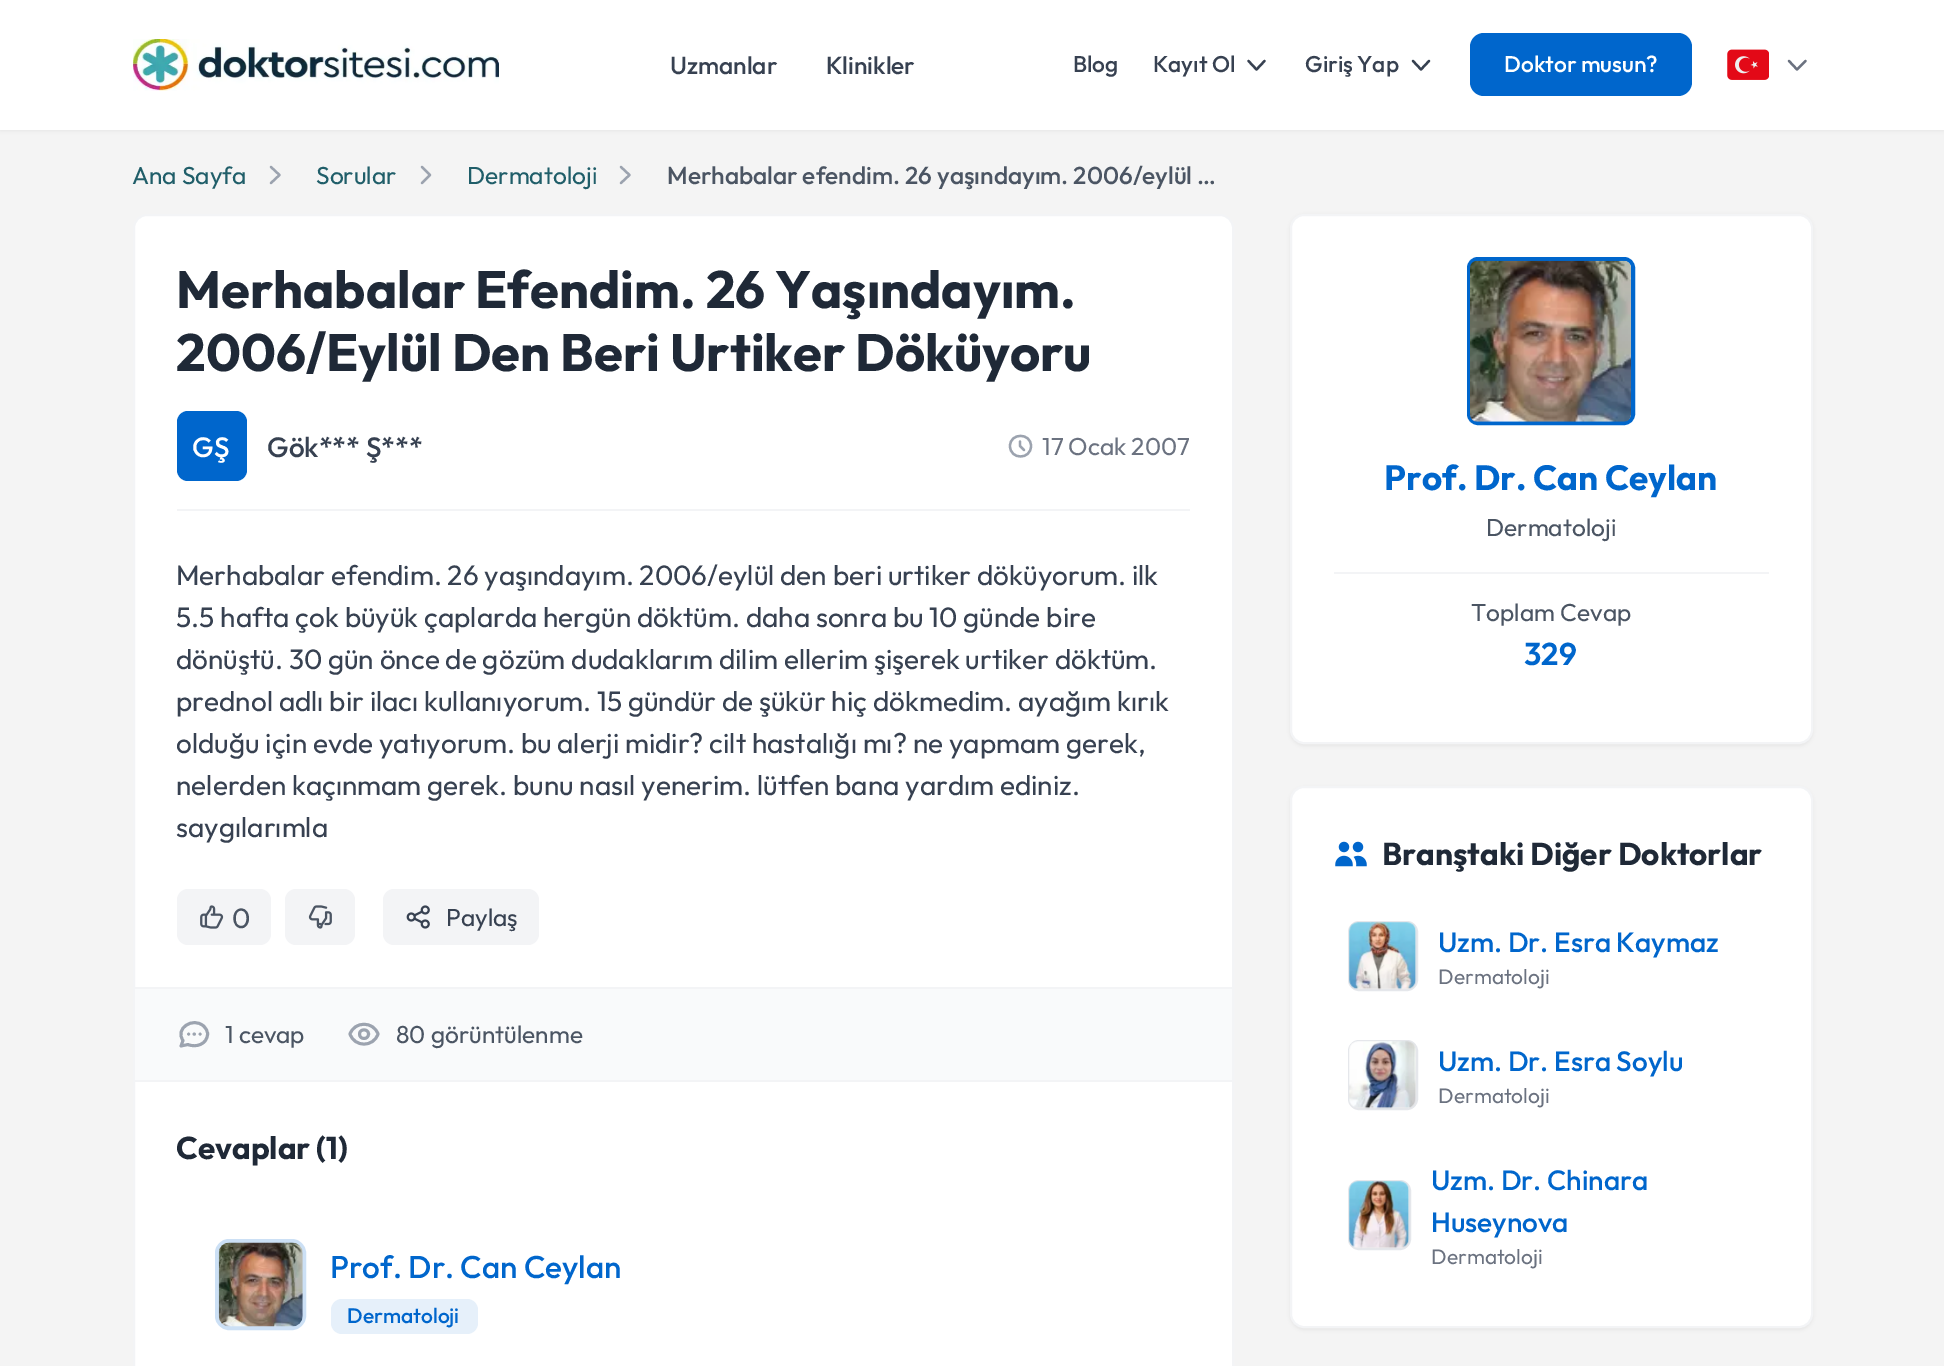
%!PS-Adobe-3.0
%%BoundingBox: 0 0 1944 1366
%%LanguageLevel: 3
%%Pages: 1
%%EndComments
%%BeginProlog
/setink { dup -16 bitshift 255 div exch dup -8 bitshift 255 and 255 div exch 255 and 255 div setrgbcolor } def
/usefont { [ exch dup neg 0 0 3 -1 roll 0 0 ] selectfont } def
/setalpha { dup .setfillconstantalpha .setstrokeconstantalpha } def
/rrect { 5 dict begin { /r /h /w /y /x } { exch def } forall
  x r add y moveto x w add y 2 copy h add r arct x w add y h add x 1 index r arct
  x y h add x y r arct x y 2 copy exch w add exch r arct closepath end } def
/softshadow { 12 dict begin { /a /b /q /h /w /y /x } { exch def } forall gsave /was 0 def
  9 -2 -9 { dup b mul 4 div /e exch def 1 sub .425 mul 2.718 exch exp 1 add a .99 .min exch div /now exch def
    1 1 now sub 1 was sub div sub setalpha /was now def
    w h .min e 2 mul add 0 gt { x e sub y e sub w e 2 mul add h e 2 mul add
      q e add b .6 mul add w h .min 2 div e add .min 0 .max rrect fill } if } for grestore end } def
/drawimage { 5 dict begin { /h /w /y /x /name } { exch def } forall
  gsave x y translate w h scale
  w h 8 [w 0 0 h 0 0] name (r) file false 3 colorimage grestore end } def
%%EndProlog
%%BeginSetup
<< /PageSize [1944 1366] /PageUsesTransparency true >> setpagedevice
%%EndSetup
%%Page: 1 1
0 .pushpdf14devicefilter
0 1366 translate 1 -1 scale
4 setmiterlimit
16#F4F4F4 setink
0 0 1944 1366 rectfill
16#000000 setink
0 2 1944 129 0 2 0.05 softshadow
16#FFFFFF setink
0 0 1944 130 rectfill
(img1.raw) 133 39 366 52 drawimage
/Outfit-Medium 24.5 usefont
16#374151 setink
670 74 moveto (Uzmanlar) show
826 74 moveto (Klinikler) show
/Outfit-Medium 22.75 usefont
1073 72 moveto (Blog) show
1153 72 moveto (Kayıt Ol) show
2.3 setlinewidth
1 setlinecap
1 setlinejoin
1264.5 61 moveto 1256.5 69.5 lineto 1248.5 61 lineto stroke
1305 72 moveto (Giriş Yap) show
1429 61 moveto 1421 69.5 lineto 1413 61 lineto stroke
16#0066CC setink
1470 33 222 63 14 rrect fill
16#FFFFFF setink
1504 72 moveto (Doktor musun?) show
(img2.raw) 1727 49 42 31 drawimage
16#6B7280 setink
1805.5 61 moveto 1797 69.5 lineto 1789 61 lineto stroke
/Outfit-Regular 24.5 usefont
16#205E69 setink
132 184 moveto (Ana Sayfa) show
16#9CA3AF setink
271 167 moveto 279.5 175 lineto 271 183 lineto stroke
16#205E69 setink
316 184 moveto (Sorular) show
16#9CA3AF setink
422 167 moveto 430 175 lineto 422 183 lineto stroke
16#205E69 setink
467 184 moveto (Dermatoloji) show
16#9CA3AF setink
621 167 moveto 629.5 175 lineto 621 183 lineto stroke
/Outfit-Medium 24.5 usefont
16#4B5563 setink
667 184 moveto (Merhabalar efendim. 26 yaşındayım. 2006/eylül …) show
16#FFFFFF setink
134 215 1099 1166 13 rrect gsave fill grestore
16#F3F4F6 setink
2 setlinewidth
0 setlinecap
0 setlinejoin
stroke
/Outfit-Bold 52.5 usefont
16#1F2937 setink
176 308 moveto (Merhabalar Efendim. 26 Yaşındayım.) show
176 371 moveto (2006/Eylül Den Beri Urtiker Döküyoru) show
16#F3F4F6 setink
177 509 1013 2 rectfill
16#0066CC setink
177 411 70 70 11 rrect fill
/Outfit-Medium 28 usefont
16#FFFFFF setink
192 457 moveto (GŞ) show
16#374151 setink
267 457 moveto (Gök*** Ş***) show
16#9CA3AF setink
2.3 setlinewidth
1 setlinecap
1 setlinejoin
1020 441.5 moveto 1020 446 lineto 1024 450 lineto 1031 446 moveto 1031 460 1010 460 1010 446 curveto 1010 432.5 1031 432.5 1031 446 curveto closepath stroke
/Outfit-Regular 24.5 usefont
16#6B7280 setink
1042 455 moveto (17 Ocak 2007) show
/Outfit-Regular 28 usefont
16#374151 setink
[
    [(Merhabalar efendim. 26 yaşındayım. 2006/eylül den beri urtiker döküyorum. ilk) 176 585]
    [(5.5 hafta çok büyük çaplarda hergün döktüm. daha sonra bu 10 günde bire) 176 627]
    [(dönüştü. 30 gün önce de gözüm dudaklarım dilim ellerim şişerek urtiker döktüm.) 176 669]
    [(prednol adlı bir ilacı kullanıyorum. 15 gündür de şükür hiç dökmedim. ayağım kırık) 176 711]
    [(olduğu için evde yatıyorum. bu alerji midir? cilt hastalığı mı? ne yapmam gerek,) 176 753]
    [(nelerden kaçınmam gerek. bunu nasıl yenerim. lütfen bana yardım ediniz.) 176 795]
    [(saygılarımla) 176 837]
] { aload pop moveto show } forall
16#F3F4F6 setink
177 889 94 56 11 rrect fill
(img3.raw) 200 905 24 24 drawimage
16#4B5563 setink
232 928 moveto (0) show
16#F3F4F6 setink
285 889 70 56 11 rrect fill
(img4.raw) 308 905 24 24 drawimage
383 889 156 56 11 rrect fill
(img5.raw) 406 905 24 24 drawimage
/Outfit-Regular 24.5 usefont
16#374151 setink
446 926 moveto (Paylaş) show
[
    [135 989 1097 91 16#F9FAFB]
    [135 987 1097 2 16#F3F4F6]
    [135 1080 1097 2 16#F3F4F6]
] { aload pop setink rectfill } forall
16#9CA3AF setink
2.9 setlinewidth
188.5 1034 moveto 188.5 1034 lineto 194 1034 moveto 194.5 1034 lineto 200 1034 moveto 200 1034 lineto 207.5 1034 moveto 207.5 1044 196 1048 188 1044.5 curveto 181 1046 lineto 183 1040.5 lineto 174.5 1028.5 193 1016.5 203.5 1026 curveto 206 1028 207.5 1031 207.5 1034 curveto closepath stroke
16#4B5563 setink
225 1043 moveto (1 cevap) show
16#9CA3AF setink
368.5 1034 moveto 368.5 1040 359.5 1040 359.5 1034 curveto 359.5 1028.5 368.5 1028.5 368.5 1034 curveto closepath 350 1034 moveto 354.5 1021 373.5 1021 378 1034 curveto 373.5 1047.5 354.5 1047.5 350 1034 curveto closepath stroke
16#4B5563 setink
396 1043 moveto (80 görüntülenme) show
/Outfit-Bold 31.5 usefont
16#1F2937 setink
176 1159 moveto (Cevaplar \(1\)) show
16#CCE0F5 setink
4 setlinewidth
0 setlinecap
0 setlinejoin
217 1241 87 87 12 rrect stroke
(img6.raw) 218 1242 85 85 drawimage
/Outfit-Medium 31.5 usefont
16#0066CC setink
330 1278 moveto (Prof. Dr. Can Ceylan) show
16#E6F0FA setink
331 1299 147 35 11 rrect fill
/Outfit-Medium 21 usefont
16#0066CC setink
347 1323 moveto (Dermatoloji) show
16#000000 setink
1290 215 523 531 14 2 0.05 softshadow
16#FFFFFF setink
1291 215 521 528 13 rrect gsave fill grestore
16#F3F4F6 setink
2 setlinewidth
stroke
16#0066CC setink
4 setlinewidth
1469 259 164 164 9 rrect stroke
(img7.raw) 1470 260 161 162 drawimage
/Outfit-Bold 35 usefont
1384 490 moveto (Prof. Dr. Can Ceylan) show
/Outfit-Regular 24.5 usefont
16#4B5563 setink
1486 536 moveto (Dermatoloji) show
16#F3F4F6 setink
1334 572 435 2 rectfill
16#4B5563 setink
1471 621 moveto (Toplam Cevap) show
/Outfit-SemiBold 31.5 usefont
16#0066CC setink
1524 665 moveto (329) show
16#000000 setink
1290 788 523 542 14 2 0.05 softshadow
16#FFFFFF setink
1291 787 521 540 13 rrect gsave fill grestore
16#F3F4F6 setink
2 setlinewidth
stroke
(img8.raw) 1335 841 32 26 drawimage
/Outfit-Bold 31.5 usefont
16#1F2937 setink
1382 865 moveto (Branştaki Diğer Doktorlar) show
16#ECECEC setink
1349 922 68 68 10 rrect gsave fill grestore
16#E5E7EB setink
stroke
(img9.raw) 1349 922 68 68 drawimage
/Outfit-Medium 28 usefont
16#0066CC setink
1438 952 moveto (Uzm. Dr. Esra Kaymaz) show
/Outfit-Regular 21 usefont
16#6B7280 setink
1438 984 moveto (Dermatoloji) show
16#ECECEC setink
1349 1041 68 68 10 rrect gsave fill grestore
16#E5E7EB setink
stroke
(img10.raw) 1349 1041 67 68 drawimage
/Outfit-Medium 28 usefont
16#0066CC setink
1438 1071 moveto (Uzm. Dr. Esra Soylu) show
/Outfit-Regular 21 usefont
16#6B7280 setink
1438 1103 moveto (Dermatoloji) show
16#ECECEC setink
1349 1181 61 68 10 rrect gsave fill grestore
16#E5E7EB setink
stroke
(img11.raw) 1349 1181 61 68 drawimage
/Outfit-Medium 28 usefont
16#0066CC setink
1431 1190 moveto (Uzm. Dr. Chinara) show
1431 1232 moveto (Huseynova) show
/Outfit-Regular 21 usefont
16#6B7280 setink
1431 1264 moveto (Dermatoloji) show
.poppdf14devicefilter showpage
%%EOF
